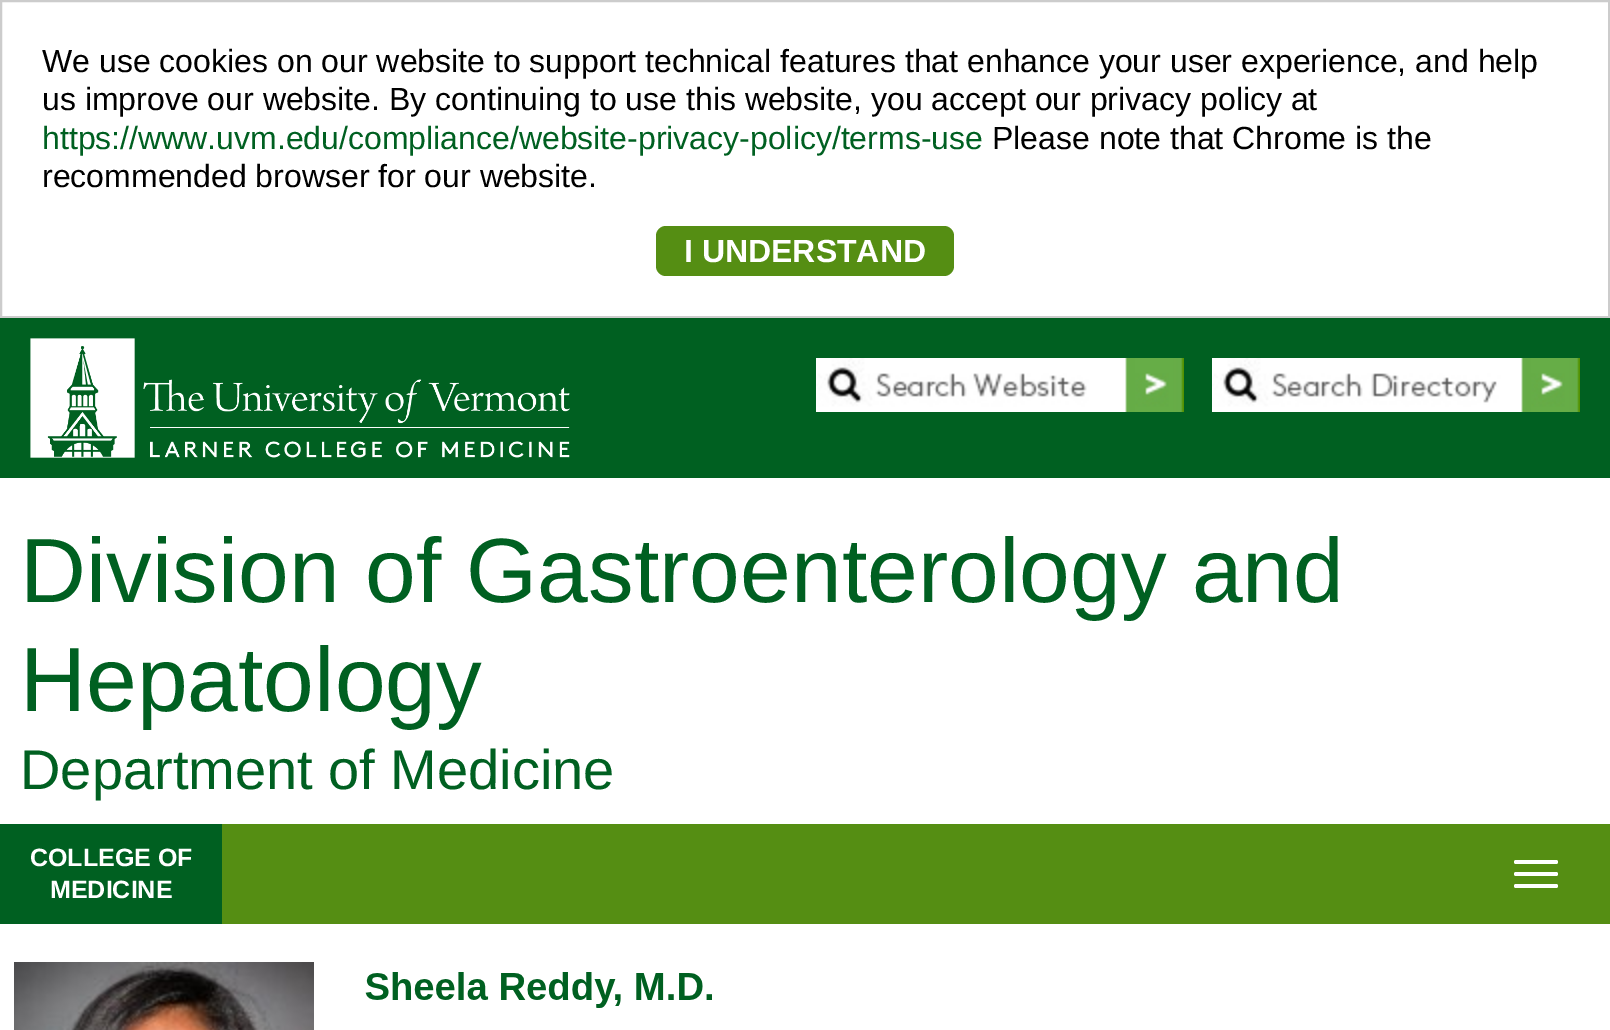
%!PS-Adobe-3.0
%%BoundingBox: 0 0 1610 1030
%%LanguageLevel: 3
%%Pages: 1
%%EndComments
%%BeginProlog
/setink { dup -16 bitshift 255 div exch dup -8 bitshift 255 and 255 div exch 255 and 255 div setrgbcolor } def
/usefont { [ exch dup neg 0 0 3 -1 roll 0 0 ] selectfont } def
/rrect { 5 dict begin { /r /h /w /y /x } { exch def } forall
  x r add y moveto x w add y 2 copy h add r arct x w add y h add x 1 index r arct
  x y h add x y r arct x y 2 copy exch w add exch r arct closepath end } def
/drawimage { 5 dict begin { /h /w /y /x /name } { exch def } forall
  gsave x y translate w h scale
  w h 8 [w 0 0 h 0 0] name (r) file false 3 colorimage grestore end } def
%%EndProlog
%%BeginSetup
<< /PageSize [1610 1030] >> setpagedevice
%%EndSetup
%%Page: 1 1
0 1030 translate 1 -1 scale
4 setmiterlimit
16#FFFFFF setink
0 0 1610 1030 rectfill
16#CCCCCC setink
2 setlinewidth
1 1 1608 316 rectstroke
/LiberationSans-Regular 32 usefont
16#000000 setink
42 72 moveto (We use cookies on our website to support technical features that enhance your user experience, and help) show
42 110 moveto (us improve our website. By continuing to use this website, you accept our privacy policy at) show
16#006021 setink
42 149 moveto (https://www.uvm.edu/compliance/website-privacy-policy/terms-use) show
16#000000 setink
992 149 moveto (Please note that Chrome is the) show
42 187 moveto (recommended browser for our website.) show
16#558E13 setink
656 226 298 50 10 rrect fill
/LiberationSans-Bold 32 usefont
16#FFFFFF setink
684 262 moveto (I UNDERSTAND) show
16#006021 setink
0 318 1610 160 rectfill
(img1.raw) 30 338 540 120 drawimage
(img2.raw) 816 358 368 54 drawimage
(img3.raw) 1212 358 368 54 drawimage
/LiberationSans-Regular 91.25 usefont
20 602 moveto (Division of Gastroenterology and) show
20 711 moveto (Hepatology) show
/LiberationSans-Regular 56 usefont
20 789 moveto (Department of Medicine) show
16#558E13 setink
222 824 1388 100 rectfill
16#006021 setink
0 824 222 100 rectfill
/LiberationSans-Bold 25 usefont
16#FFFFFF setink
30 866 moveto (COLLEGE OF) show
50 898 moveto (MEDICINE) show
1514 860 44 4 2 rrect fill
1514 872 44 4 2 rrect fill
1514 884 44 4 2 rrect fill
(img4.raw) 14 962 698 68 drawimage
showpage
%%EOF
